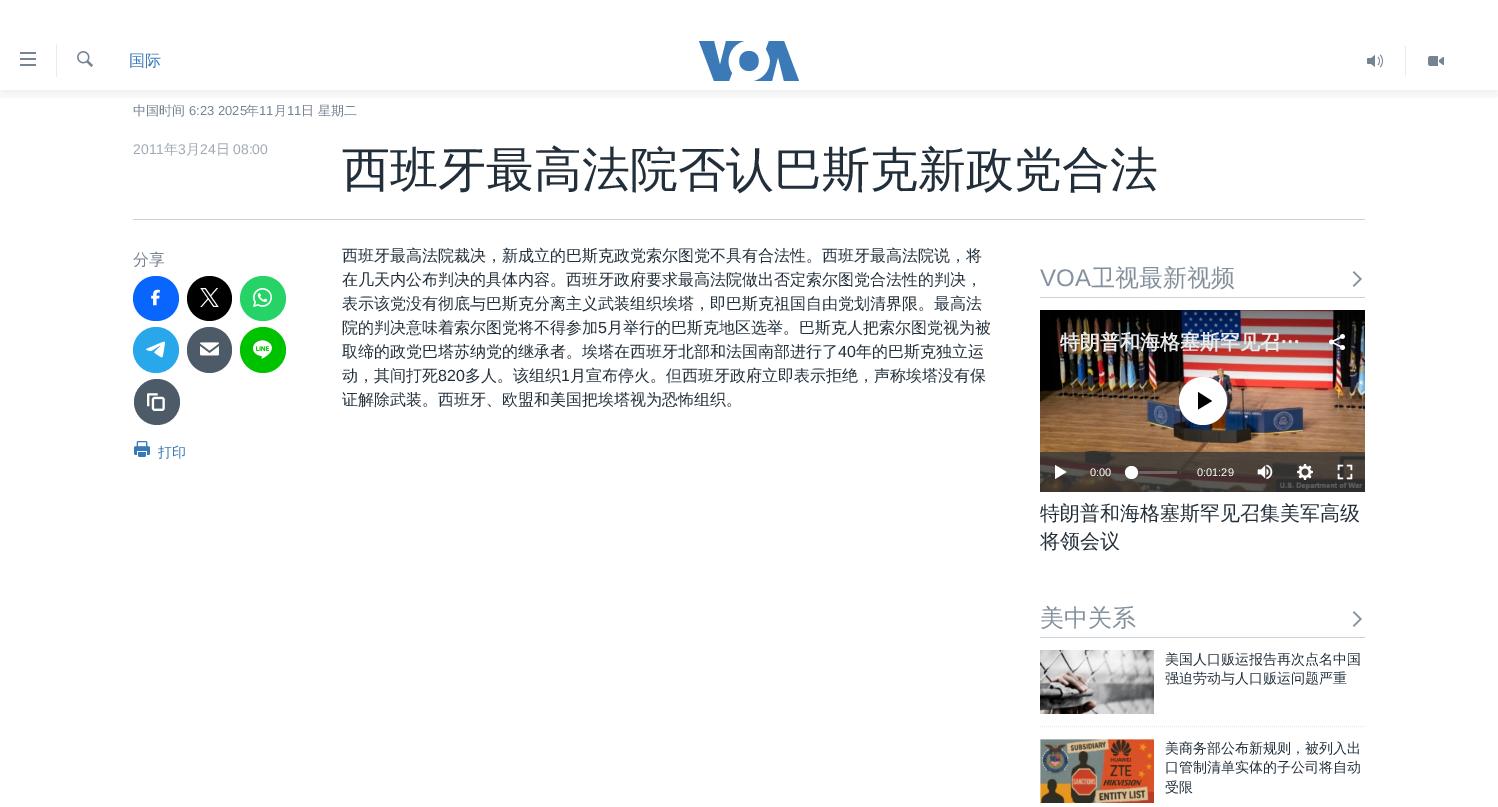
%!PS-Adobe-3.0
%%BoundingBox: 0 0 1498 807
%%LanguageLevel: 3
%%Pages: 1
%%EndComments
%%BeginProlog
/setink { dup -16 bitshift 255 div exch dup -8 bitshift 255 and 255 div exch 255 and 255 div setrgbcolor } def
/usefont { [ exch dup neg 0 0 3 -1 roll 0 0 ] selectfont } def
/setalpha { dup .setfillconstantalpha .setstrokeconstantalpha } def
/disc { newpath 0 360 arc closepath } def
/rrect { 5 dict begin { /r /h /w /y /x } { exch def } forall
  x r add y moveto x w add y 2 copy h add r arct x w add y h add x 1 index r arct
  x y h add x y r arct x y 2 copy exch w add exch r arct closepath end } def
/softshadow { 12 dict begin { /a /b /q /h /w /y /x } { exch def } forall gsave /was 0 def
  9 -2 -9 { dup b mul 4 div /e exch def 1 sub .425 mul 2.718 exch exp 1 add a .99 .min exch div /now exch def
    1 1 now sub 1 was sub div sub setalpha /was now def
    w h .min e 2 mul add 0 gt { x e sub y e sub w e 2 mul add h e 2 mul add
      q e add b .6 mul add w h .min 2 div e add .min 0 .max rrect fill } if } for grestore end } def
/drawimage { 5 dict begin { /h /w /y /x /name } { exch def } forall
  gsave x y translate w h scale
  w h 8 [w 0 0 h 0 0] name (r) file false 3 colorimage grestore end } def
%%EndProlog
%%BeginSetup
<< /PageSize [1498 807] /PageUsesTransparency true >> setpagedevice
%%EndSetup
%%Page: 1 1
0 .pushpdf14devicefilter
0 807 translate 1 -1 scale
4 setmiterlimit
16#FFFFFF setink
0 0 1498 807 rectfill
gsave
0 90 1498 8 rectclip
16#000000 setink
0 26 1498 64 0 10 0.1 softshadow
grestore
0 13 1498 13 rectfill
(img1.raw) 20 52 16 14 drawimage
16#EBEBEB setink
56 44 1 33 rectfill
(img2.raw) 77 51 16 16 drawimage
/WenQuanYiZenHei-Medium 16 usefont
16#3A79B7 setink
129 66 moveto (国际) show
16#3B79B7 setink
732 73 moveto 729 81 lineto 714 81 lineto 699 41 lineto 714 41 lineto 720 65 lineto 726 41 lineto 744 41 lineto 730 45 724 61 732 73 curveto closepath 749 51 moveto 736 51 736 71 749 71 curveto 762 71 762 51 749 51 curveto closepath 770 61 moveto 770 71 763 79 754 81 curveto 772 81 lineto 778 57 lineto 784 81 lineto 799 81 lineto 784 41 lineto 769 41 lineto 766 49 lineto 768 53 770 57 770 61 curveto closepath fill
16#EBEBEB setink
1405 46 1 30 rectfill
(img3.raw) 1367 54 16 14 drawimage
(img4.raw) 1428 56 16 10 drawimage
/WenQuanYiZenHei-Medium 13 usefont
16#768492 setink
133 115 moveto (中国时间) show
/LiberationSans-Regular 13 usefont
189 115 moveto (6:23 2025) show
/WenQuanYiZenHei-Medium 13 usefont
246 115 moveto (年) show
/LiberationSans-Regular 13 usefont
259 115 moveto (11) show
/WenQuanYiZenHei-Medium 13 usefont
274 115 moveto (月) show
/LiberationSans-Regular 13 usefont
287 115 moveto (11) show
/WenQuanYiZenHei-Medium 13 usefont
301 115 moveto (日 星期二) show
/LiberationSans-Regular 14 usefont
16#A1AAB4 setink
133 154 moveto (2011) show
/WenQuanYiZenHei-Medium 14 usefont
164 154 moveto (年) show
/LiberationSans-Regular 14 usefont
178 154 moveto (3) show
/WenQuanYiZenHei-Medium 14 usefont
186 154 moveto (月) show
/LiberationSans-Regular 14 usefont
200 154 moveto (24) show
/WenQuanYiZenHei-Medium 14 usefont
216 154 moveto (日) show
/LiberationSans-Regular 14 usefont
233 154 moveto (08:00) show
/WenQuanYiZenHei-Medium 48 usefont
16#222F3A setink
342 186 moveto (西班牙最高法院否认巴斯克新政党合法) show
16#CBD1D6 setink
133 219 1232 1 rectfill
/WenQuanYiZenHei-Medium 16 usefont
16#768492 setink
133 265 moveto (分享) show
16#0866FF setink
133 276 46 45 22.5 rrect fill
(img5.raw) 151 289 9 17 drawimage
16#000000 setink
209.5 298.5 22.5 disc fill
(img6.raw) 200 288 19 19 drawimage
16#25D366 setink
240 276 46 45 22.5 rrect fill
(img7.raw) 253 288 19 19 drawimage
16#28A8EA setink
156 350 23 disc fill
(img8.raw) 146 341 19 17 drawimage
16#4D5A67 setink
187 327 45 46 22.5 rrect fill
(img9.raw) 200 342 19 14 drawimage
16#00C300 setink
263 350 23 disc fill
(img10.raw) 253 340 19 19 drawimage
16#4D5A67 setink
157 402 23 disc fill
(img11.raw) 147 393 18 18 drawimage
(img12.raw) 134 441 16 16 drawimage
/WenQuanYiZenHei-Medium 14 usefont
16#3A79B7 setink
158 457 moveto (打印) show
/WenQuanYiZenHei-Medium 16 usefont
16#222F3A setink
[
    [(西班牙最高法院裁决，新成立的巴斯克政党索尔图党不具有合法性。西班牙最高法院说，将) 342 261]
    [(在几天内公布判决的具体内容。西班牙政府要求最高法院做出否定索尔图党合法性的判决，) 342 285]
    [(表示该党没有彻底与巴斯克分离主义武装组织埃塔，即巴斯克祖国自由党划清界限。最高法) 342 309]
    [(院的判决意味着索尔图党将不得参加) 342 333]
] { aload pop moveto show } forall
/LiberationSans-Regular 16 usefont
598 333 moveto (5) show
/WenQuanYiZenHei-Medium 16 usefont
607 333 moveto (月举行的巴斯克地区选举。巴斯克人把索尔图党视为被) show
342 357 moveto (取缔的政党巴塔苏纳党的继承者。埃塔在西班牙北部和法国南部进行了) show
/LiberationSans-Regular 16 usefont
838 357 moveto (40) show
/WenQuanYiZenHei-Medium 16 usefont
856 357 moveto (年的巴斯克独立运) show
342 381 moveto (动，其间打死) show
/LiberationSans-Regular 16 usefont
438 381 moveto (820) show
/WenQuanYiZenHei-Medium 16 usefont
465 381 moveto (多人。该组织) show
/LiberationSans-Regular 16 usefont
561 381 moveto (1) show
/WenQuanYiZenHei-Medium 16 usefont
570 381 moveto (月宣布停火。但西班牙政府立即表示拒绝，声称埃塔没有保) show
342 405 moveto (证解除武装。西班牙、欧盟和美国把埃塔视为恐怖组织。) show
16#CBD1D6 setink
1040 297 325 1 rectfill
/LiberationSans-Regular 24 usefont
16#84919D setink
1040 286 moveto (VOA) show
/WenQuanYiZenHei-Medium 24 usefont
1091 286 moveto (卫视最新视频) show
(img13.raw) 1352 271 10 16 drawimage
(img14.raw) 1040 310 325 182 drawimage
/WenQuanYiZenHei-Bold 20 usefont
16#EBEBEB setink
1060 349 moveto (特朗普和海格塞斯罕见召…) show
(img15.raw) 1329 334 17 16 drawimage
16#FFFFFF setink
1203 401 24 disc fill
16#000000 setink
1198 409.5 moveto 1212 401 lineto 1198 392 lineto closepath fill
0.8 setalpha
16#383838 setink
1040 452 325 40 rectfill
1 setalpha
16#FFFFFF setink
1055 479 moveto 1066.5 472 lineto 1055 465 lineto closepath fill
/LiberationSans-Regular 11 usefont
1090 476 moveto (0:00) show
0.25 setalpha
1131 471 46 3 rectfill
1 setalpha
16#414144 setink
1125 466 13 13 6.5 1.5 1 softshadow
16#FFFFFF setink
1131.5 472.5 6.5 disc fill
1197 476 moveto (0:01:29) show
(img16.raw) 1257 464 16 16 drawimage
(img17.raw) 1297 464 16 16 drawimage
(img18.raw) 1337 464 16 16 drawimage
/WenQuanYiZenHei-Medium 20 usefont
16#222F3A setink
1040 520 moveto (特朗普和海格塞斯罕见召集美军高级) show
1040 548 moveto (将领会议) show
16#CBD1D6 setink
1040 637 325 1 rectfill
/WenQuanYiZenHei-Medium 24 usefont
16#84919D setink
1040 626 moveto (美中关系) show
(img13.raw) 1352 611 10 16 drawimage
(img19.raw) 1040 650 114 64 drawimage
/WenQuanYiZenHei-Medium 14 usefont
16#222F3A setink
1165 664 moveto (美国人口贩运报告再次点名中国) show
1165 683 moveto (强迫劳动与人口贩运问题严重) show
16#E8EAEC setink
[1 1] 0 setdash
1040 726.5 moveto 1365 726.5 lineto stroke
16#F6F7F8 setink
1040 739 114 64 rectfill
(img20.raw) 1040 739 114 64 drawimage
16#222F3A setink
[
    [(美商务部公布新规则，被列入出) 1165 753]
    [(口管制清单实体的子公司将自动) 1165 772]
    [(受限) 1165 792]
] { aload pop moveto show } forall
.poppdf14devicefilter showpage
%%EOF
